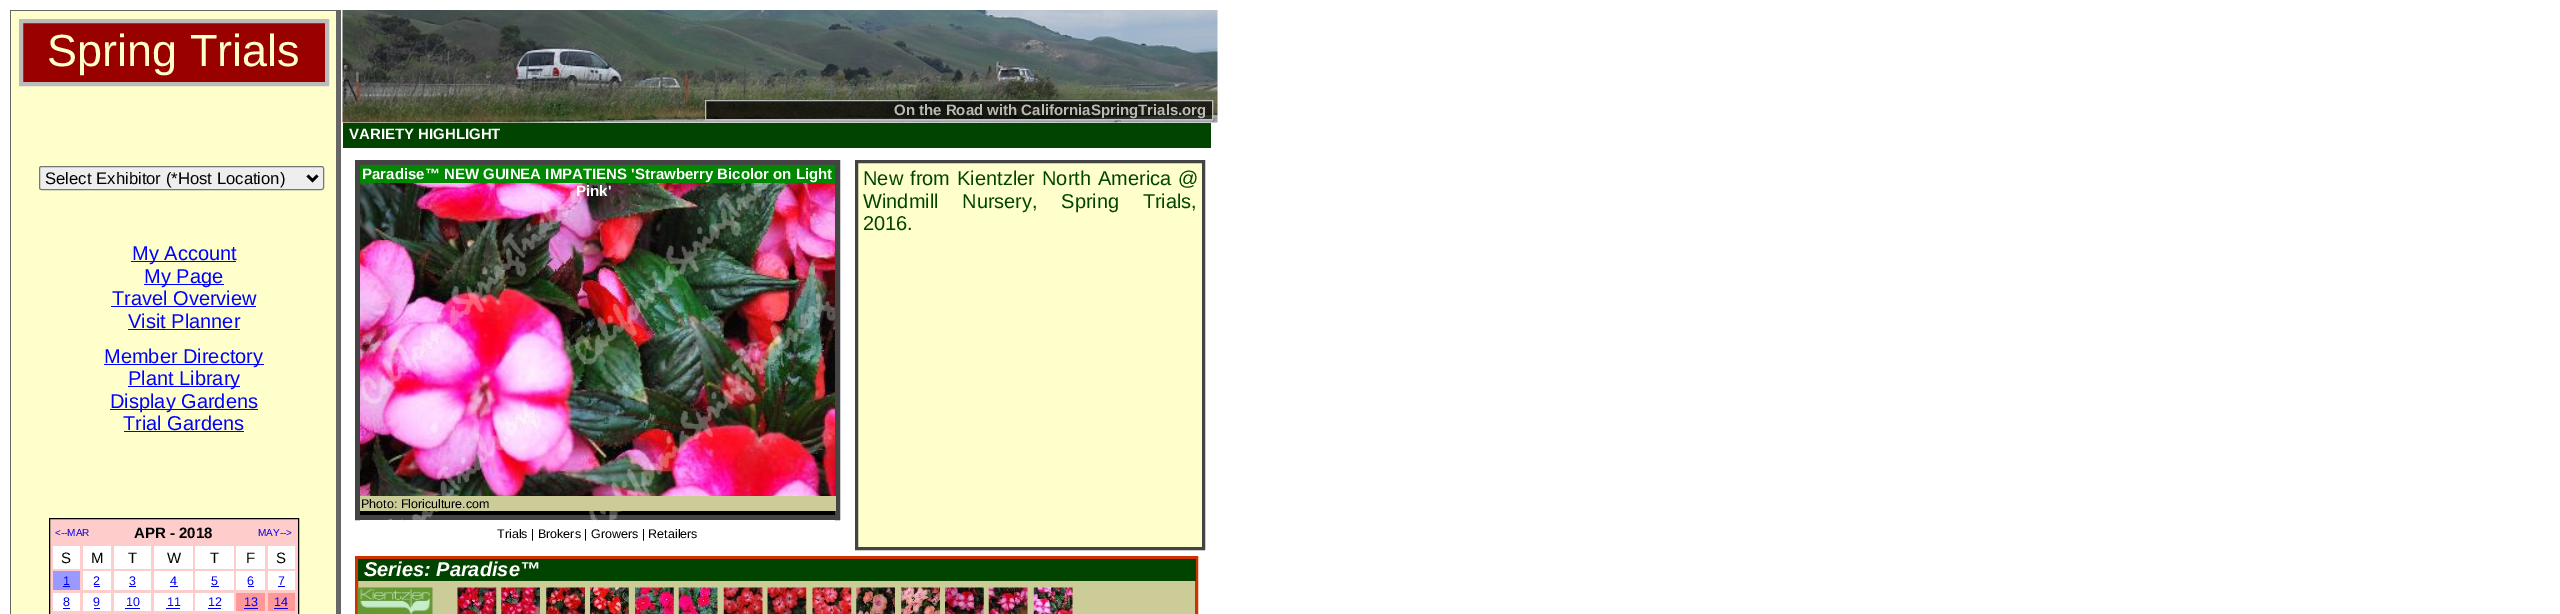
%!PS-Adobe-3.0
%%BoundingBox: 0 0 2560 614
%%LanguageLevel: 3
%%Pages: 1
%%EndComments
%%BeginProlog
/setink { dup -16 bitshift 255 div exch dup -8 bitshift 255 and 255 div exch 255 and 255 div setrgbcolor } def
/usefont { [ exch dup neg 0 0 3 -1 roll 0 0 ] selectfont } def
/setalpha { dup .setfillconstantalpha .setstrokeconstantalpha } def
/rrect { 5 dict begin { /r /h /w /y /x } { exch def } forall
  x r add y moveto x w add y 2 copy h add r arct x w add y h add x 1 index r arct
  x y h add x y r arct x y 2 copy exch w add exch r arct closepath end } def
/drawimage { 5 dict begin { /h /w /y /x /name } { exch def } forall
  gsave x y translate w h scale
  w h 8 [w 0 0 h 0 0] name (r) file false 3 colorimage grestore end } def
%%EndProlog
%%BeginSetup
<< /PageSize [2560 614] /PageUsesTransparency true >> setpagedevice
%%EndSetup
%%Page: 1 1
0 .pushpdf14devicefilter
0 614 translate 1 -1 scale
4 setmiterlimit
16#FFFFFF setink
0 0 2560 614 rectfill
[
    [11 11 325 603 16#FFFFCC]
    [10 10 331 1 16#666666]
    [336 10 5 604 16#666666]
    [10 10 1 604 16#666666]
] { aload pop setink rectfill } forall
16#990000 setink
21 21 moveto 327 21 lineto 327 84 lineto 21 84 lineto closepath gsave fill grestore
16#BBBBBB setink
4 setlinewidth
stroke
/LiberationSans-Regular 45 usefont
16#FFFFCC setink
47 66 moveto (Spring Trials) show
16#EEEEEE setink
39.5 166.5 284 23 2 rrect gsave fill grestore
16#767676 setink
1 setlinewidth
stroke
16#000000 setink
2.5 setlinewidth
307.5 175.5 moveto 312.5 180.5 lineto 317.5 175.5 lineto stroke
/LiberationSans-Regular 16.7 usefont
45 184 moveto (Select Exhibitor \(*Host Location\)) show
16#0000FF setink
131 261 105 1 rectfill
/LiberationSans-Regular 20 usefont
132 260 moveto (My Account) show
144 284 80 1 rectfill
144 283 moveto (My Page) show
112 305 moveto (Travel Overview) show
111 306 145 1 rectfill
128 328 moveto (Visit Planner) show
128 329 112 1 rectfill
104 364 160 1 rectfill
104 363 moveto (Member Directory) show
128 386 112 1 rectfill
128 385 moveto (Plant Library) show
110 409 148 1 rectfill
110 408 moveto (Display Gardens) show
123 430 moveto (Trial Gardens) show
124 431 120 1 rectfill
16#FFCCCC setink
49.5 518.5 moveto 298.5 518.5 lineto 298.5 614.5 lineto 49.5 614.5 lineto closepath gsave fill grestore
16#000000 setink
1 setlinewidth
stroke
/LiberationSans-Regular 10 usefont
16#0000EE setink
55 536 moveto (<--MAR) show
/LiberationSans-Bold 15 usefont
16#000000 setink
134 538 moveto (APR - 2018) show
/LiberationSans-Regular 10 usefont
16#0000EE setink
258 536 moveto (MAY-->) show
16#FFFFFF setink
53 546 27 23 rectfill
/LiberationSans-Regular 15 usefont
16#000000 setink
61 563 moveto (S) show
16#FFFFFF setink
83 546 28 23 rectfill
16#000000 setink
91 563 moveto (M) show
16#FFFFFF setink
114 546 37 23 rectfill
16#000000 setink
128 563 moveto (T) show
16#FFFFFF setink
154 546 39 23 rectfill
16#000000 setink
167 563 moveto (W) show
16#FFFFFF setink
195 546 39 23 rectfill
16#000000 setink
210 563 moveto (T) show
16#FFFFFF setink
236 546 29 23 rectfill
16#000000 setink
246 563 moveto (F) show
16#FFFFFF setink
268 546 27 23 rectfill
16#000000 setink
276 563 moveto (S) show
16#9999FF setink
53 571 27 19 rectfill
/LiberationSans-Regular 12.5 usefont
16#0000EE setink
63 585 moveto (1) show
63 586 7 1 rectfill
16#FFFFFF setink
83 571 28 19 rectfill
16#0000EE setink
93 585 moveto (2) show
94 586 6 1 rectfill
16#FFFFFF setink
114 571 37 19 rectfill
16#0000EE setink
129 585 moveto (3) show
129 586 7 1 rectfill
16#FFFFFF setink
154 571 39 19 rectfill
16#0000EE setink
170 585 moveto (4) show
170 586 8 1 rectfill
16#FFFFFF setink
195 571 39 19 rectfill
16#0000EE setink
211 585 moveto (5) show
211 586 8 1 rectfill
16#FFFFFF setink
236 571 29 19 rectfill
16#0000EE setink
247 585 moveto (6) show
248 586 6 1 rectfill
16#FFFFFF setink
268 571 27 19 rectfill
16#0000EE setink
278 585 moveto (7) show
278 586 7 1 rectfill
16#FFFFFF setink
53 593 27 18 rectfill
16#0000EE setink
63 606 moveto (8) show
63 608 7 1 rectfill
16#FFFFFF setink
83 593 28 18 rectfill
16#0000EE setink
93 606 moveto (9) show
94 608 6 1 rectfill
16#FFFFFF setink
114 593 37 18 rectfill
16#0000EE setink
126 606 moveto (10) show
125 608 15 1 rectfill
16#FFFFFF setink
154 593 39 18 rectfill
16#0000EE setink
167 606 moveto (11) show
166 608 14 1 rectfill
16#FFFFFF setink
195 593 39 18 rectfill
16#0000EE setink
208 606 moveto (12) show
208 608 13 1 rectfill
16#FF9999 setink
236 593 29 18 rectfill
16#0000EE setink
244 606 moveto (13) show
244 608 14 1 rectfill
16#FF9999 setink
268 593 27 18 rectfill
16#0000EE setink
274 606 moveto (14) show
274 608 14 1 rectfill
(img1.raw) 342 10 876 113 drawimage
0.7 setalpha
16#000000 setink
705 100 508 20 rectfill
16#FFFFFF setink
705.5 100.5 507 19 rectstroke
/LiberationSans-Bold 15 usefont
1 setalpha
16#BABAB7 setink
894 115 moveto (On the Road with CaliforniaSpringTrials.org) show
16#004400 setink
343 123 868 25 rectfill
16#FFFFFF setink
349 139 moveto (VARIETY HIGHLIGHT) show
16#000000 setink
360 511 475 4 rectfill
16#444444 setink
5 setlinewidth
357.5 162.5 480 355 rectstroke
(img2.raw) 360 183 475 313 drawimage
16#008800 setink
360 165 475 18 rectfill
16#FFFFFF setink
362 179 moveto (Paradise™ NEW GUINEA IMPATIENS 'Strawberry Bicolor on Light) show
(img3.raw) 360 183 475 339 drawimage
576 196 moveto (Pink') show
16#CCCC99 setink
360 496 476 15 rectfill
/LiberationSans-Regular 12.5 usefont
16#000000 setink
361 508 moveto (Photo: Floriculture.com) show
497 538 moveto (Trials | Brokers | Growers | Retailers) show
16#FFFFCC setink
856.5 161.5 moveto 1203.5 161.5 lineto 1203.5 548.5 lineto 856.5 548.5 lineto closepath gsave fill grestore
16#444444 setink
3 setlinewidth
stroke
/LiberationSans-Regular 20 usefont
16#004400 setink
863 185 moveto 1.5 0 32 (New from Kientzler North America @) widthshow
863 208 moveto 18 0 32 (Windmill Nursery, Spring Trials,) widthshow
863 230 moveto (2016.) show
16#CCCC99 setink
358 581 837 33 rectfill
16#CC3300 setink
356.5 557.5 840 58 rectstroke
16#004400 setink
358 559 838 22 rectfill
/LiberationSans-BoldItalic 20 usefont
16#FFFFFF setink
364 576 moveto (Series: Paradise™) show
(img4.raw) 357 587 76 27 drawimage
(img5.raw) 457 587 40 27 drawimage
(img6.raw) 501 587 39 27 drawimage
(img7.raw) 546 587 39 27 drawimage
(img8.raw) 590 587 39 27 drawimage
(img9.raw) 635 587 39 27 drawimage
(img10.raw) 678 587 40 27 drawimage
(img11.raw) 723 587 40 27 drawimage
(img12.raw) 767 587 40 27 drawimage
(img13.raw) 812 587 40 27 drawimage
(img14.raw) 856 587 39 27 drawimage
(img15.raw) 901 587 39 27 drawimage
(img16.raw) 945 587 39 27 drawimage
(img17.raw) 988 587 40 27 drawimage
(img18.raw) 1033 587 40 27 drawimage
.poppdf14devicefilter showpage
%%EOF
